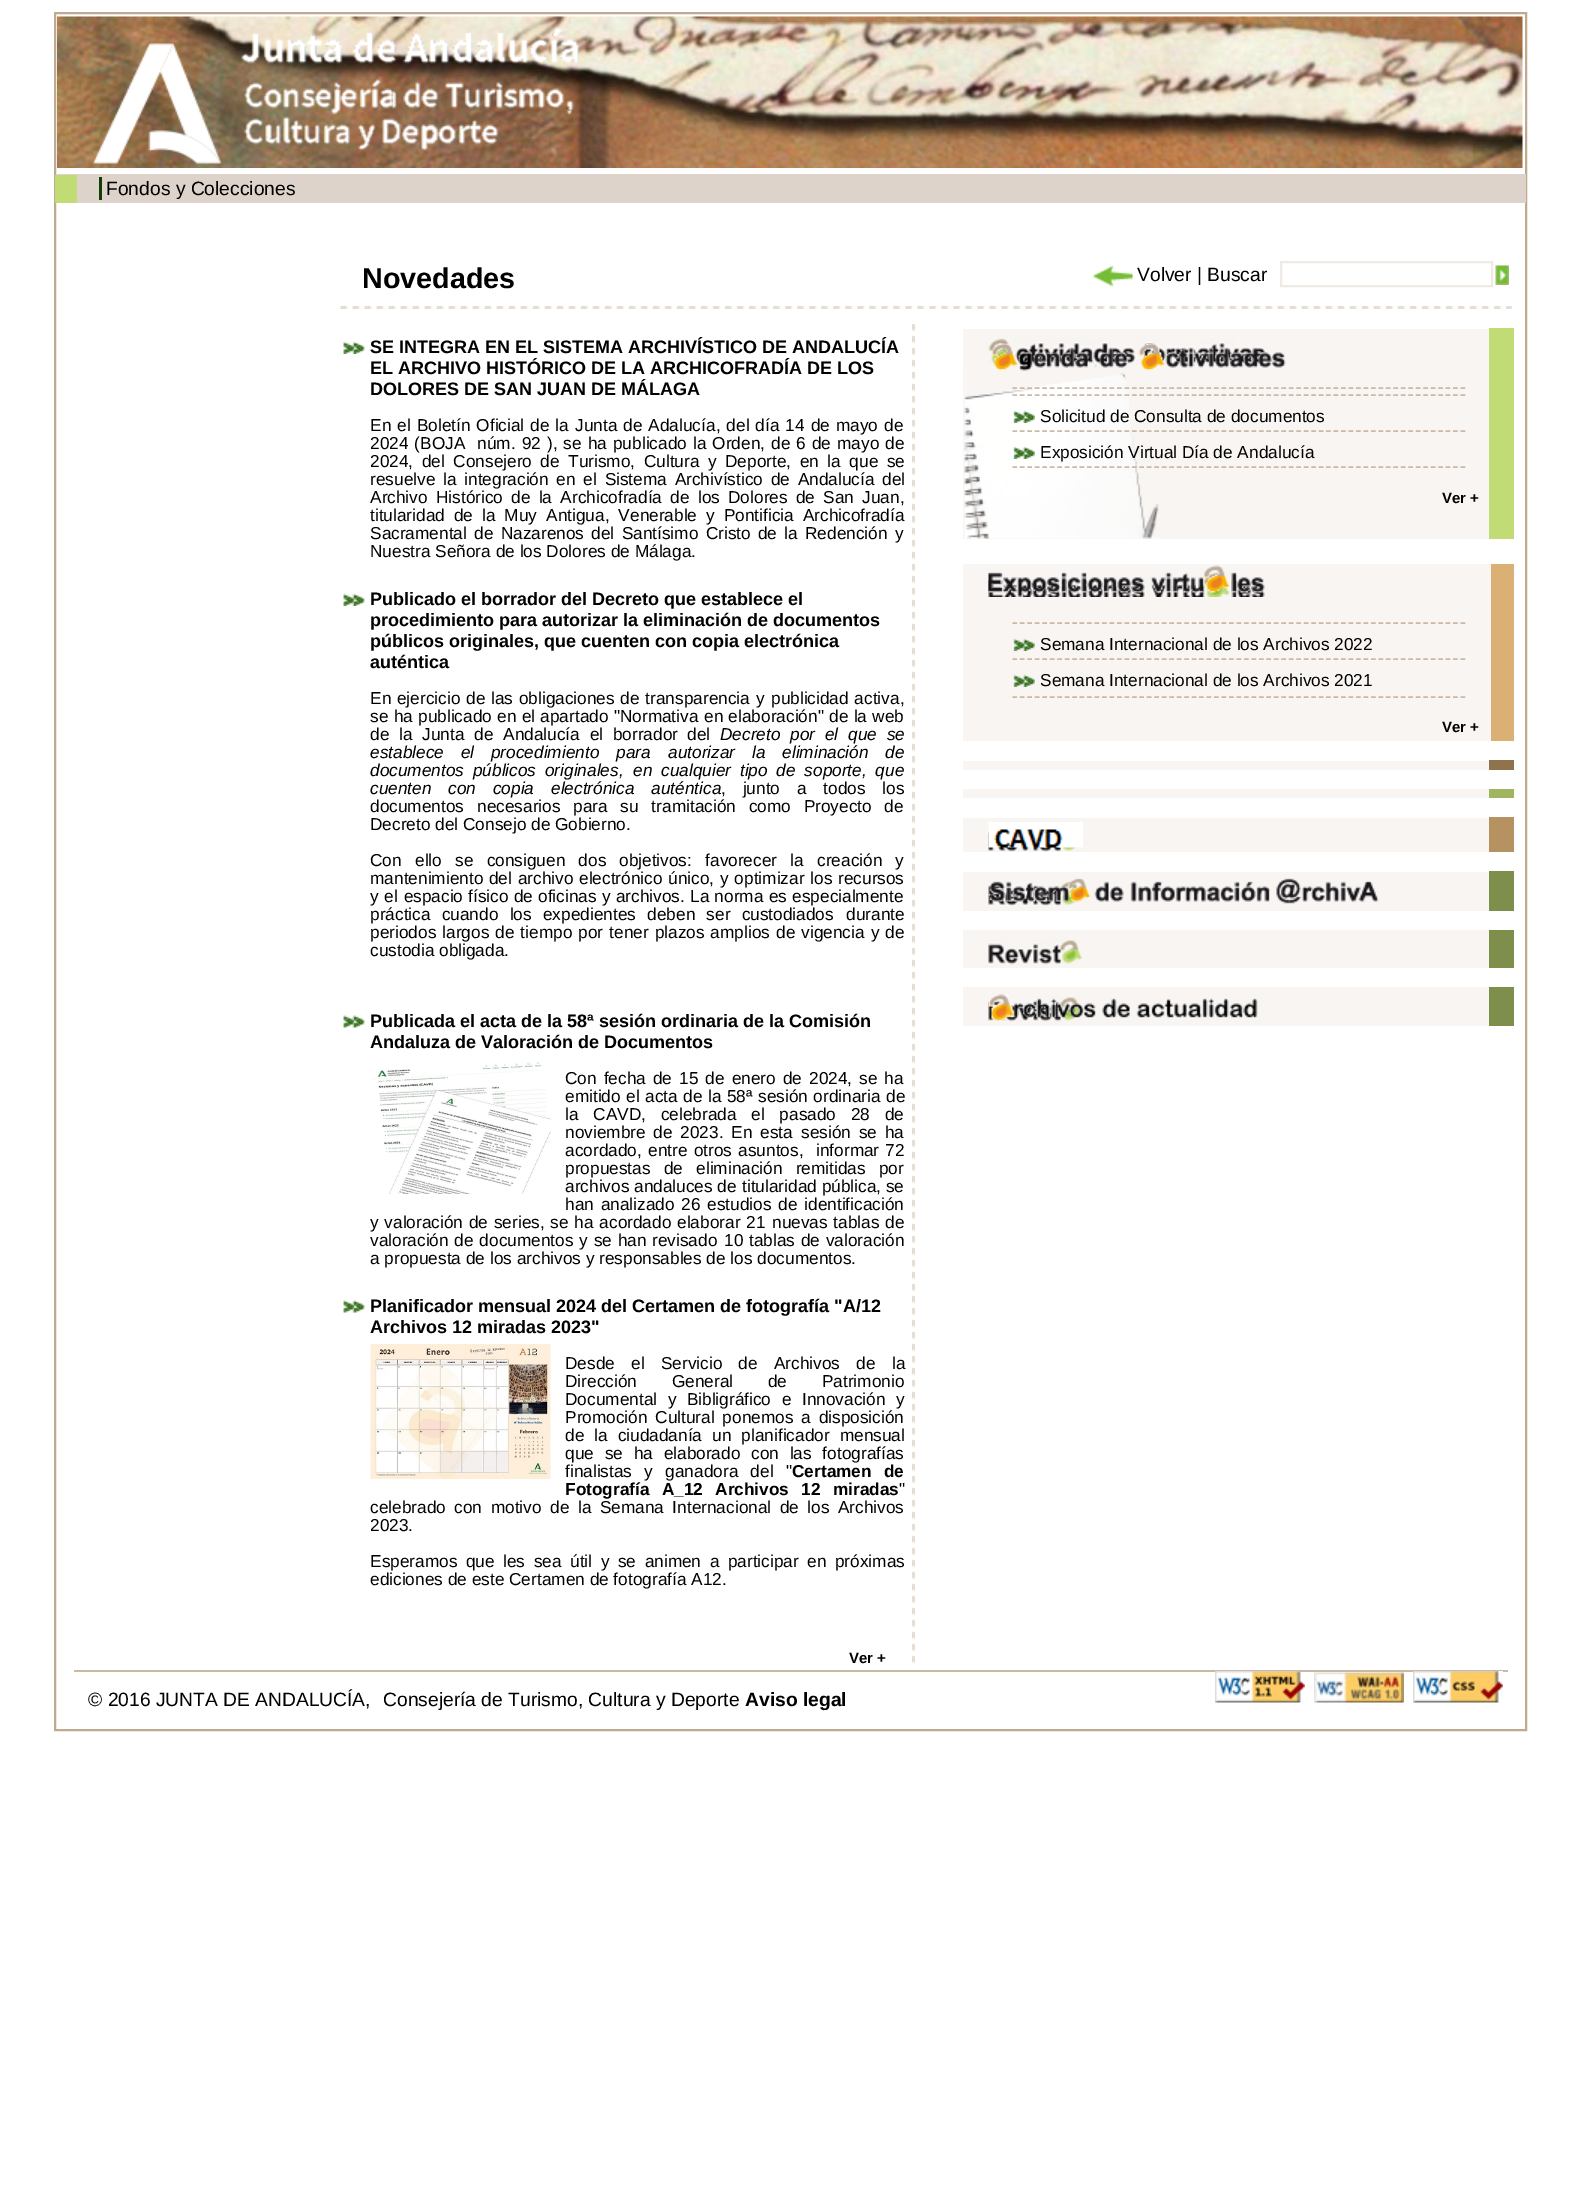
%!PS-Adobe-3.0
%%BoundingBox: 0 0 1579 2212
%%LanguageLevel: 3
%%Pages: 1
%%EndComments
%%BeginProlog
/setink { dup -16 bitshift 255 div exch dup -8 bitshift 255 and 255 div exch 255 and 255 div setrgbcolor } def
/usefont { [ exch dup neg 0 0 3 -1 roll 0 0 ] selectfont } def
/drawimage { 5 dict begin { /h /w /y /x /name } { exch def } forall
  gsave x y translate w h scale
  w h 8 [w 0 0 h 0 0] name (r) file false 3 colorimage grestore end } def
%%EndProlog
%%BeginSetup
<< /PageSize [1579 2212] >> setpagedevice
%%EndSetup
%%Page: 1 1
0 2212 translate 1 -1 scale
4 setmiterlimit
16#FFFFFF setink
0 0 1579 2212 rectfill
16#BFAA8F setink
2 setlinewidth
55 13 1471 1717 rectstroke
(img1.raw) 57 16 1466 152 drawimage
(img2.raw) 92 43 130 121 drawimage
(img3.raw) 241 26 339 125 drawimage
[
    [56 174 1470 29 16#DDD3CB]
    [55 175 22 28 16#C1DB75]
    [99 177 3 23 16#143D03]
] { aload pop setink rectfill } forall
/LiberationSans-Regular 19.25 usefont
16#000000 setink
106 195 moveto (Fondos y Colecciones) show
/LiberationSans-Bold 28.75 usefont
362 288 moveto (Novedades) show
(img4.raw) 1092 265 41 22 drawimage
/LiberationSans-Regular 19.25 usefont
1137 281 moveto (Volver | Buscar) show
16#EFEAE4 setink
1281 262 211 24 rectstroke
(img5.raw) 1495 265 14 20 drawimage
(img6.raw) 340 306 1172 3 drawimage
(img7.raw) 912 324 3 1340 drawimage
(img8.raw) 343 341 22 13 drawimage
/LiberationSans-Bold 18 usefont
16#000000 setink
[
    [(SE INTEGRA EN EL SISTEMA ARCHIVÍSTICO DE ANDALUCÍA) 370 353]
    [(EL ARCHIVO HISTÓRICO DE LA ARCHICOFRADÍA DE LOS) 370 374]
    [(DOLORES DE SAN JUAN DE MÁLAGA) 370 395]
] { aload pop moveto show } forall
/LiberationSans-Regular 17.25 usefont
370 431 moveto 1.25 0 32 (En el Boletín Oficial de la Junta de Adalucía, del día 14 de mayo de) widthshow
370 449 moveto 1.25 0 32 (2024 \(BOJA  núm. 92 \), se ha publicado la Orden, de 6 de mayo de) widthshow
370 467 moveto 3.75 0 32 (2024, del Consejero de Turismo, Cultura y Deporte, en la que se) widthshow
370 485 moveto 3 0 32 (resuelve la integración en el Sistema Archivístico de Andalucía del) widthshow
370 503 moveto 3.5 0 32 (Archivo Histórico de la Archicofradía de los Dolores de San Juan,) widthshow
370 521 moveto 4.25 0 32 (titularidad de la Muy Antigua, Venerable y Pontificia Archicofradía) widthshow
370 539 moveto 2.5 0 32 (Sacramental de Nazarenos del Santísimo Cristo de la Redención y) widthshow
370 557 moveto (Nuestra Señora de los Dolores de Málaga.) show
(img8.raw) 343 593 22 13 drawimage
/LiberationSans-Bold 18 usefont
[
    [(Publicado el borrador del Decreto que establece el) 370 605]
    [(procedimiento para autorizar la eliminación de documentos) 370 626]
    [(públicos originales, que cuenten con copia electrónica) 370 647]
    [(auténtica) 370 668]
] { aload pop moveto show } forall
/LiberationSans-Regular 17.25 usefont
370 704 moveto 1 0 32 (En ejercicio de las obligaciones de transparencia y) widthshow
771 704 moveto 1 0 32 (publicidad activa,) widthshow
370 722 moveto 0.5 0 32 (se ha publicado en el apartado "Normativa) widthshow
704 722 moveto 0.5 0 32 (en elaboración" de la web) widthshow
370 740 moveto 5 0 32 (de la Junta de Andalucía el borrador) widthshow
687 740 moveto (del) show
/LiberationSans-Italic 17.25 usefont
720 740 moveto 5 0 32 (Decreto por el que se) widthshow
370 758 moveto 12 0 32 (establece el procedimiento para) widthshow
668 758 moveto 12 0 32 (autorizar la eliminación de) widthshow
370 776 moveto 4 0 32 (documentos públicos originales,) widthshow
633 776 moveto 4 0 32 (en cualquier tipo de soporte, que) widthshow
370 794 moveto 12 0 32 (cuenten con copia) widthshow
551 794 moveto 12 0 32 (electrónica auténtica) widthshow
/LiberationSans-Regular 17.25 usefont
721 794 moveto 12 0 32 (, junto a todos los) widthshow
370 812 moveto (documentos) show
477 812 moveto 8 0 32 (necesarios para su tramitación como Proyecto de) widthshow
370 830 moveto (Decreto del Consejo de Gobierno.) show
370 866 moveto 8.5 0 32 (Con ello se consiguen dos) widthshow
619 866 moveto 8.5 0 32 (objetivos: favorecer la creación y) widthshow
370 884 moveto 1 0 32 (mantenimiento del archivo) widthshow
579 884 moveto 1 0 32 (electrónico único, y optimizar los recursos) widthshow
370 902 moveto 1 0 32 (y el espacio) widthshow
468 902 moveto 0.5 0 32 (físico de oficinas y archivos. La norma es especialmente) widthshow
370 920 moveto 6.5 0 32 (práctica cuando los expedientes deben ser custodiados) widthshow
846 920 moveto (durante) show
370 938 moveto 1.25 0 32 (periodos largos de tiempo por tener plazos amplios) widthshow
776 938 moveto 1.25 0 32 (de vigencia y de) widthshow
370 956 moveto (custodia obligada.) show
(img9.raw) 343 1015 22 13 drawimage
/LiberationSans-Bold 18 usefont
370 1027 moveto (Publicada el acta de la 58ª sesión ordinaria de la Comisión) show
370 1048 moveto (Andaluza de Valoración de Documentos) show
(img10.raw) 371 1062 180 132 drawimage
/LiberationSans-Regular 17.25 usefont
565 1084 moveto 2.25 0 32 (Con fecha de 15 de enero de 2024, se ha) widthshow
565 1102 moveto 0.75 0 32 (emitido el acta de la 58ª sesión ordinaria de) widthshow
565 1120 moveto 10 0 32 (la CAVD, celebrada el pasado 28 de) widthshow
565 1138 moveto 3 0 32 (noviembre de 2023. En esta) widthshow
801 1138 moveto 3 0 32 (sesión se ha) widthshow
565 1156 moveto 1.5 0 32 (acordado, entre otros asuntos,  informar 72) widthshow
565 1174 moveto 8.5 0 32 (propuestas de eliminación remitidas por) widthshow
565 1192 moveto (archivos andaluces de) show
742 1192 moveto (titularidad pública, se) show
565 1210 moveto 2 0 32 (han analizado 26 estudios de identificación) widthshow
370 1228 moveto 1 0 32 (y valoración de series, se ha acordado elaborar 21) widthshow
772 1228 moveto 1 0 32 (nuevas tablas de) widthshow
370 1246 moveto 1 0 32 (valoración de documentos y se han revisado) widthshow
724 1246 moveto 1 0 32 (10 tablas de valoración) widthshow
370 1264 moveto (a propuesta de los archivos y responsables de los documentos.) show
(img9.raw) 343 1300 22 13 drawimage
/LiberationSans-Bold 18 usefont
370 1312 moveto (Planificador mensual 2024 del Certamen de fotografía "A/12) show
370 1333 moveto (Archivos 12 miradas 2023") show
(img11.raw) 370 1344 181 135 drawimage
/LiberationSans-Regular 17.25 usefont
565 1369 moveto 11.5 0 32 (Desde el Servicio de Archivos de la) widthshow
565 1387 moveto 30 0 32 (Dirección General de Patrimonio) widthshow
565 1405 moveto 5.75 0 32 (Documental y Bibligráfico e Innovación y) widthshow
565 1423 moveto 3 0 32 (Promoción Cultural ponemos a disposición) widthshow
565 1441 moveto 5.25 0 32 (de la ciudadanía un planificador mensual) widthshow
565 1459 moveto 6 0 32 (que se ha elaborado con las fotografías) widthshow
565 1477 moveto 7.5 0 32 (finalistas y ganadora del ") widthshow
/LiberationSans-Bold 17.25 usefont
792 1477 moveto 7.5 0 32 (Certamen de) widthshow
565 1495 moveto 7.5 0 32 (Fotografía A_12 Archivos 12 miradas) widthshow
/LiberationSans-Regular 17.25 usefont
899 1495 moveto (") show
370 1513 moveto 3.75 0 32 (celebrado con motivo de la Semana Internacional de los Archivos) widthshow
370 1531 moveto (2023.) show
370 1567 moveto 3.75 0 32 (Esperamos que les sea útil y se animen a participar en próximas) widthshow
370 1585 moveto (ediciones de este Certamen de fotografía A12.) show
/LiberationSans-Bold 15 usefont
849 1663 moveto (Ver +) show
16#F8F5F2 setink
963 329 526 210 rectfill
16#C1DB75 setink
1489 328 25 211 rectfill
(img12.raw) 964 368 198 171 drawimage
(img13.raw) 988 338 280 28 drawimage
(img14.raw) 991 343 295 28 drawimage
16#CBB9A5 setink
1.5 setlinewidth
[4.5 2.97] 0 setdash
1012.5 388 moveto 1465.5 388 lineto stroke
1012.5 395 moveto 1465.5 395 lineto stroke
(img15.raw) 1013 410 22 13 drawimage
1012.5 431 moveto 1465.5 431 lineto stroke
/LiberationSans-Regular 17.25 usefont
16#000000 setink
1040 422 moveto (Solicitud de Consulta de documentos) show
(img16.raw) 1013 446 22 13 drawimage
16#CBB9A5 setink
1012.5 467 moveto 1465.5 467 lineto stroke
16#000000 setink
1040 458 moveto (Exposición Virtual Día de Andalucía) show
/LiberationSans-Bold 15 usefont
1442 503 moveto (Ver +) show
16#F8F5F2 setink
963 564 528 177 rectfill
16#DBB074 setink
1491 564 23 177 rectfill
(img17.raw) 988 572 277 25 drawimage
(img18.raw) 988 565 277 32 drawimage
16#CBB9A5 setink
1012.5 623 moveto 1465.5 623 lineto stroke
(img19.raw) 1013 638 22 13 drawimage
1012.5 659 moveto 1465.5 659 lineto stroke
/LiberationSans-Regular 17.25 usefont
16#000000 setink
1040 650 moveto (Semana Internacional de los Archivos 2022) show
(img19.raw) 1013 674 22 13 drawimage
16#CBB9A5 setink
1012.5 697 moveto 1465.5 697 lineto stroke
16#000000 setink
1040 686 moveto (Semana Internacional de los Archivos 2021) show
/LiberationSans-Bold 15 usefont
1442 732 moveto (Ver +) show
[
    [963 761 526 9 16#F8F5F2]
    [1489 760 25 10 16#8F734C]
    [963 789 526 9 16#F8F5F2]
    [1489 789 25 9 16#A0B560]
    [963 818 526 34 16#F8F5F2]
    [1489 817 25 35 16#B59260]
] { aload pop setink rectfill } forall
(img20.raw) 988 827 94 25 drawimage
(img21.raw) 988 822 95 26 drawimage
16#F8F5F2 setink
963 872 526 39 rectfill
16#7E8F4C setink
1489 871 25 40 rectfill
(img20.raw) 988 881 94 25 drawimage
(img22.raw) 988 878 391 26 drawimage
16#F8F5F2 setink
963 930 526 38 rectfill
16#7E8F4C setink
1489 930 25 38 rectfill
(img23.raw) 988 939 94 26 drawimage
16#F8F5F2 setink
963 987 526 39 rectfill
16#7E8F4C setink
1489 987 25 39 rectfill
(img23.raw) 988 996 94 26 drawimage
(img24.raw) 988 994 270 28 drawimage
16#CBB9A5 setink
74 1670 1434 2 rectfill
/LiberationSans-Regular 19.25 usefont
16#000000 setink
88 1706 moveto (© 2016 JUNTA DE ANDALUCÍA,) show
383 1706 moveto (Consejería de Turismo, Cultura y Deporte) show
/LiberationSans-Bold 19.25 usefont
745 1706 moveto (Aviso legal) show
(img25.raw) 1215 1671 90 32 drawimage
(img26.raw) 1314 1672 90 31 drawimage
(img27.raw) 1413 1671 90 32 drawimage
showpage
%%EOF
